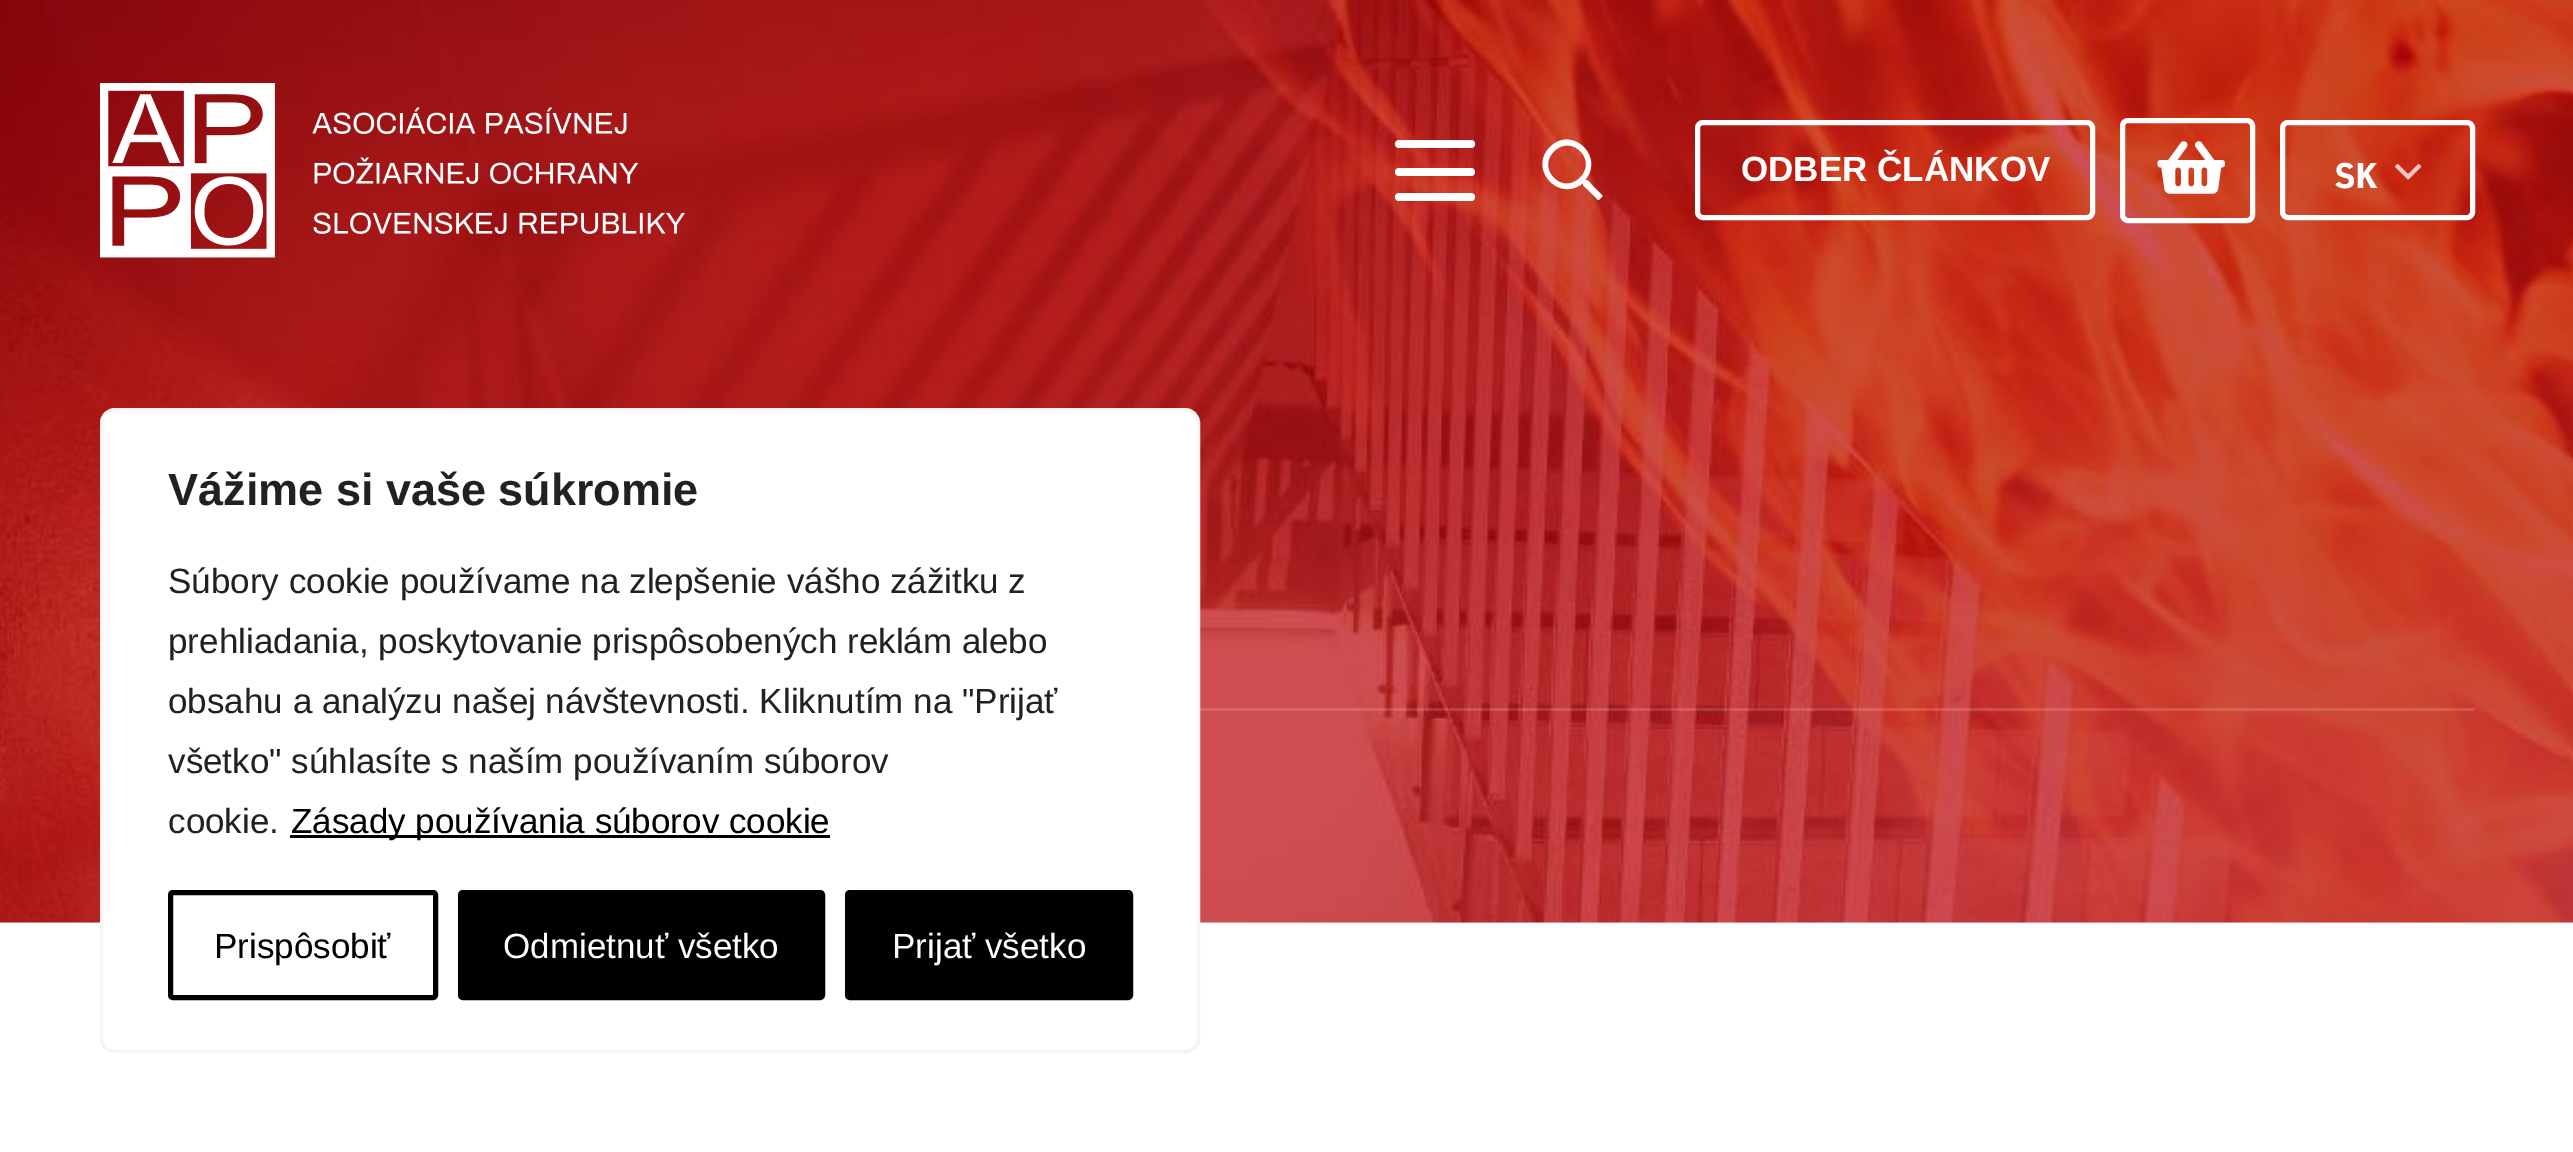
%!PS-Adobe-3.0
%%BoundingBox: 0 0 2573 1152
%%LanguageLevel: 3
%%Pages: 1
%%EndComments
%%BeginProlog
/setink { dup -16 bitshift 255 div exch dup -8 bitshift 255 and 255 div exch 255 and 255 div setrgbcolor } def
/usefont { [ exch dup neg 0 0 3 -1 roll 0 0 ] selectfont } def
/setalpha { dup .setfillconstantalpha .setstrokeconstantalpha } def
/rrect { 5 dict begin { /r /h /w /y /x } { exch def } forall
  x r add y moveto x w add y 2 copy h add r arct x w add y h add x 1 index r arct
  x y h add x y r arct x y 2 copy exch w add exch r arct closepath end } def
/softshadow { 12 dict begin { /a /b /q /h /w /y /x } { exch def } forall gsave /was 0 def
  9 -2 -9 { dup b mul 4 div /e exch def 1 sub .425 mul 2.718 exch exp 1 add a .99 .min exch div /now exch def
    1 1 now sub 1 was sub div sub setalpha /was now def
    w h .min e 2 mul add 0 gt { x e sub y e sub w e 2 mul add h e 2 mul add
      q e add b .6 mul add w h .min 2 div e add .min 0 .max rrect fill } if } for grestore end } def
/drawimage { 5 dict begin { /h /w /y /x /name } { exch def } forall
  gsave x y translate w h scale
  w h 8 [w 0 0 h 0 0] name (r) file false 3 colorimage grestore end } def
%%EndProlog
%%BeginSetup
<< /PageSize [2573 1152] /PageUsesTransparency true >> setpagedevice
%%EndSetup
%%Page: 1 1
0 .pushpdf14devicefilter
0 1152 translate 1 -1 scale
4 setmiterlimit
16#FFFFFF setink
0 0 2573 1152 rectfill
16#EBEFF2 setink
0 922 2573 1 rectfill
(img1.raw) 0 0 2573 923 drawimage
0.15 setalpha
16#FFFFFF setink
1200 708 1275 3 rectfill
1 setalpha
(img2.raw) 100 83 585 175 drawimage
1395 168 80 8 4 rrect fill
1395 140 80 8 4 rrect fill
1395 193 80 8 4 rrect fill
1602 195 moveto 1603 196 1602 197 1601 198 curveto 1598 201 1598 200 1595 197 curveto 1586 188 lineto 1583 185 1583 186 1583 183 curveto 1559 203 1528 169 1550 147 curveto 1572 125 1605 157 1585 180 curveto 1589 180 1589 182 1593 186 curveto closepath 1554 178 moveto 1571 195 1598 169 1580 151 curveto 1563 134 1536 160 1554 178 curveto closepath fill
5 setlinewidth
1697.5 122.5 395 95 5.5 rrect stroke
/LiberationSans-Bold 35 usefont
1741 181 moveto (ODBER ČLÁNKOV) show
2122.5 120.5 130 100 5.5 rrect stroke
(img3.raw) 2157 141 68 53 drawimage
2282.5 122.5 190 95 5.5 rrect stroke
/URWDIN-Bold 35 usefont
2335 188 moveto (SK) show
(img4.raw) 2395 163 27 17 drawimage
gsave
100 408 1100 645 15 rrect clip newpath
16#ACABAB setink
100 405 1100 645 15 12.5 0.3 softshadow
grestore
101.5 409.5 1097 642 13.5 rrect gsave fill grestore
16#F4F4F4 setink
3 setlinewidth
stroke
/LiberationSans-Bold 45 usefont
16#212121 setink
168 505 moveto (Vážime si vaše súkromie) show
/LiberationSans-Regular 35 usefont
[
    [(Súbory cookie používame na zlepšenie vášho zážitku z) 168 593]
    [(prehliadania, poskytovanie prispôsobených reklám alebo) 168 653]
    [(obsahu a analýzu našej návštevnosti. Kliknutím na "Prijať) 168 713]
    [(všetko" súhlasíte s naším používaním súborov) 168 773]
    [(cookie.) 168 833]
] { aload pop moveto show } forall
16#000000 setink
290 835 540 3 rectfill
291 833 moveto (Zásady používania súborov cookie) show
5 setlinewidth
170.5 892.5 265 105 2.5 rrect stroke
214 958 moveto (Prispôsobiť) show
460.5 892.5 362 105 2.5 rrect gsave fill grestore
stroke
16#FFFFFF setink
503 958 moveto (Odmietnuť všetko) show
16#000000 setink
847.5 892.5 283 105 2.5 rrect gsave fill grestore
stroke
16#FFFFFF setink
892 958 moveto (Prijať všetko) show
.poppdf14devicefilter showpage
%%EOF
